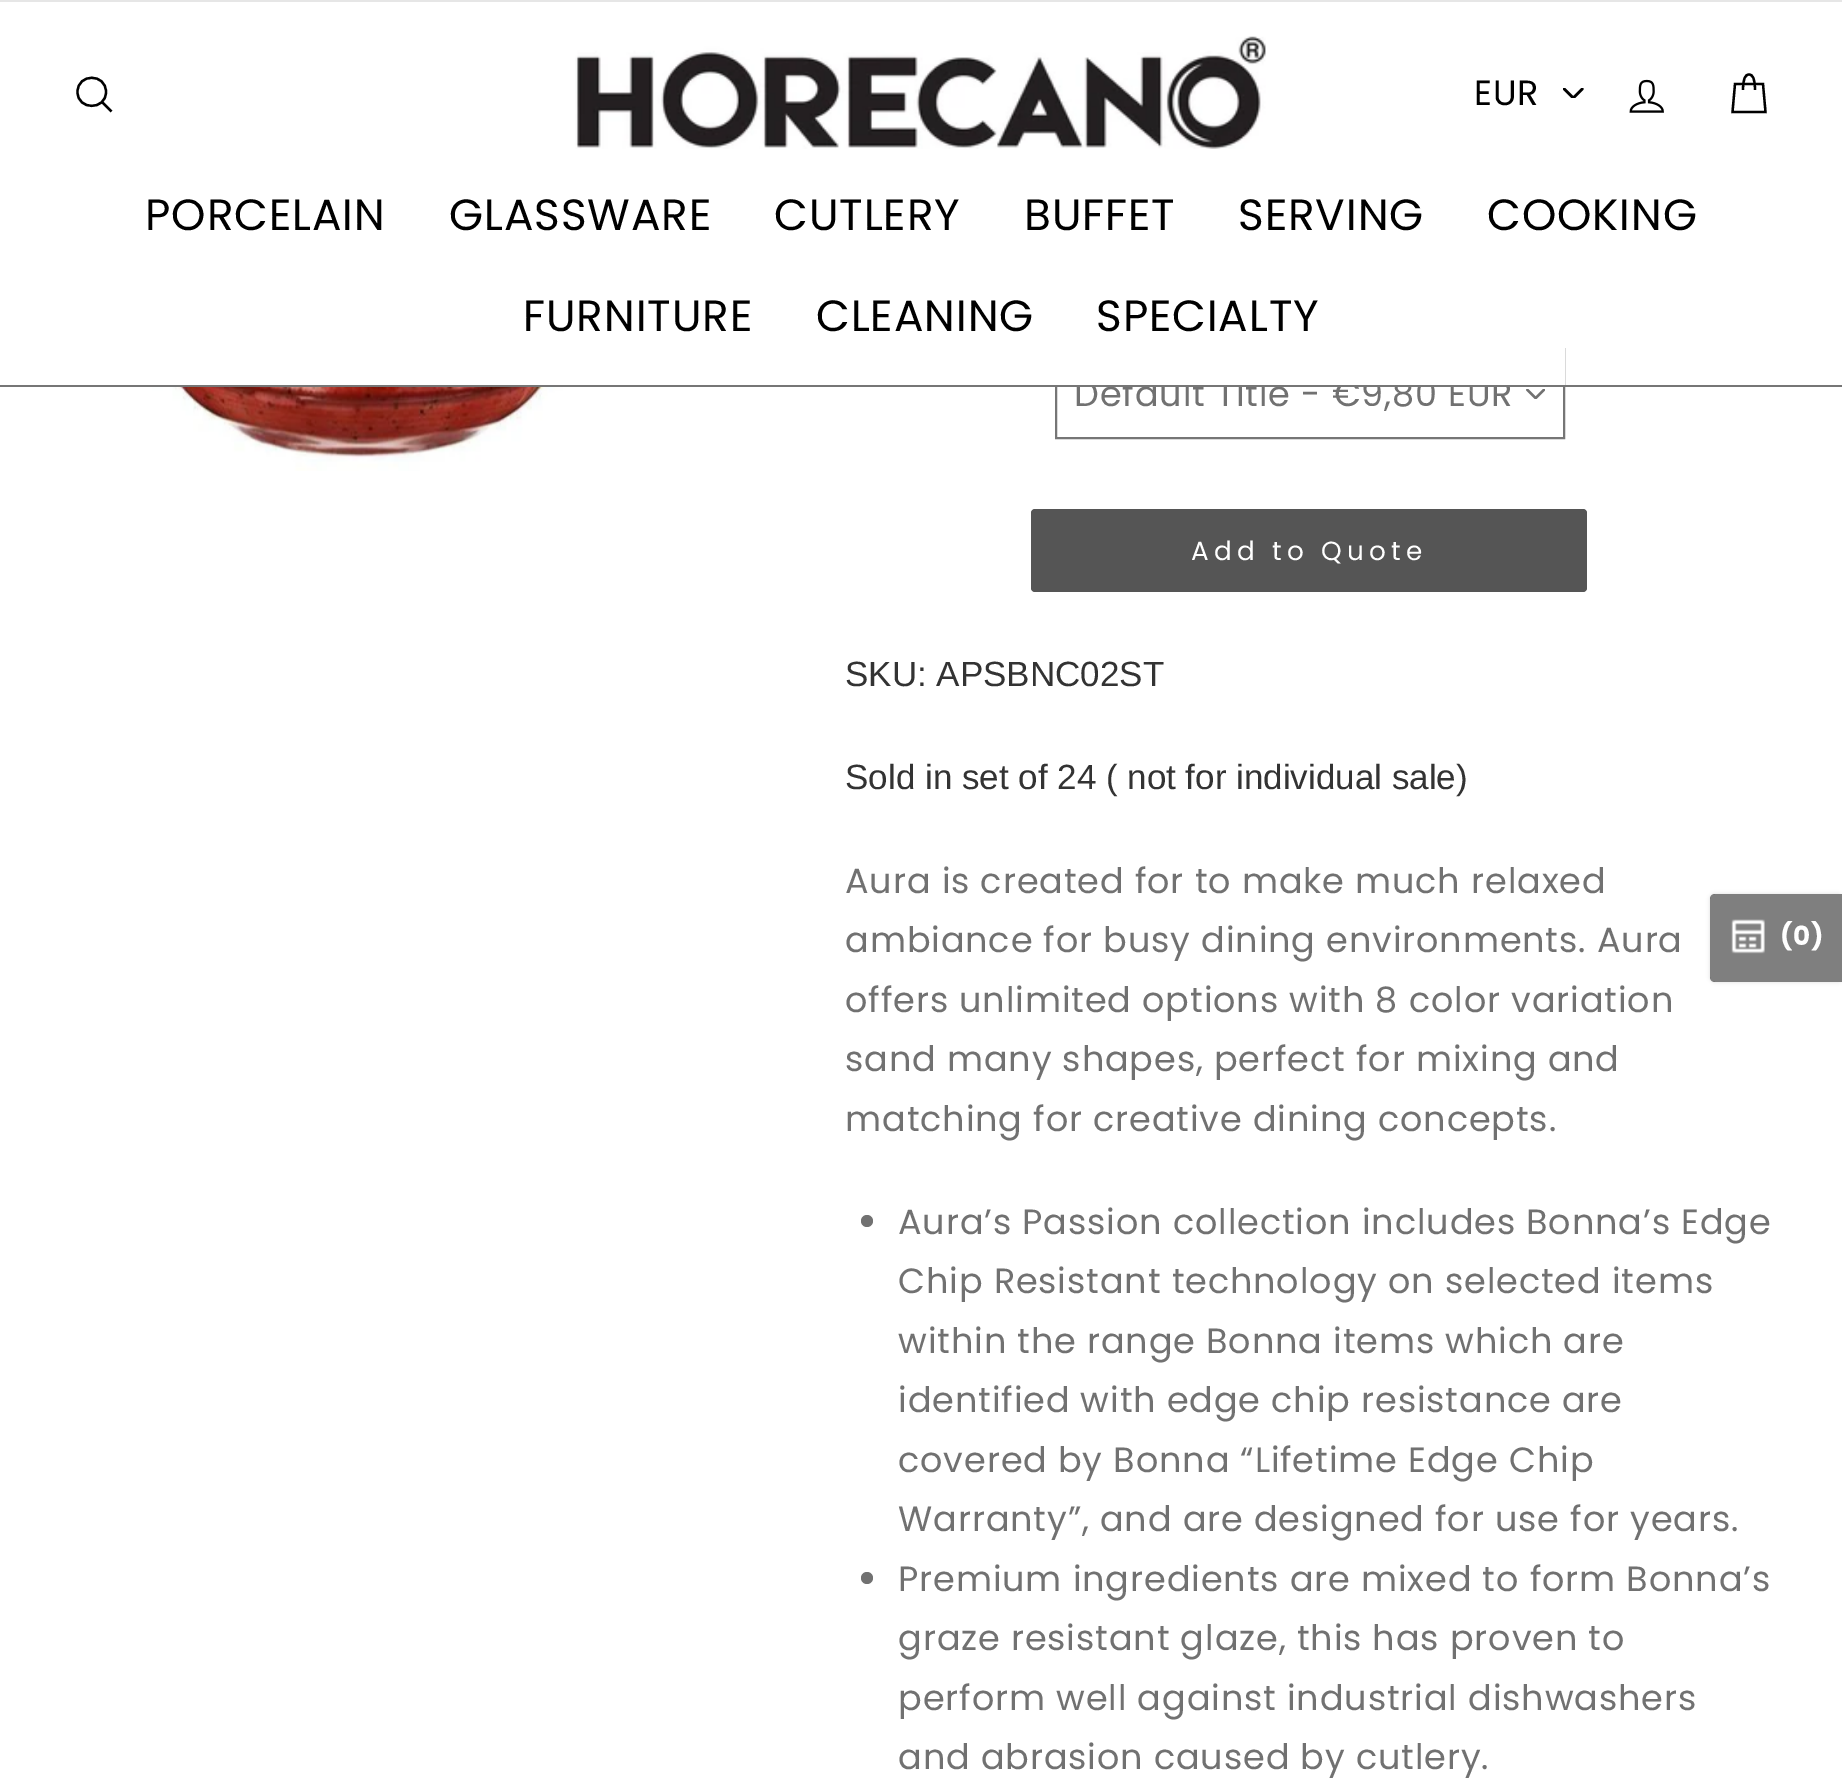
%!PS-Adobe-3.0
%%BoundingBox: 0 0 1842 1786
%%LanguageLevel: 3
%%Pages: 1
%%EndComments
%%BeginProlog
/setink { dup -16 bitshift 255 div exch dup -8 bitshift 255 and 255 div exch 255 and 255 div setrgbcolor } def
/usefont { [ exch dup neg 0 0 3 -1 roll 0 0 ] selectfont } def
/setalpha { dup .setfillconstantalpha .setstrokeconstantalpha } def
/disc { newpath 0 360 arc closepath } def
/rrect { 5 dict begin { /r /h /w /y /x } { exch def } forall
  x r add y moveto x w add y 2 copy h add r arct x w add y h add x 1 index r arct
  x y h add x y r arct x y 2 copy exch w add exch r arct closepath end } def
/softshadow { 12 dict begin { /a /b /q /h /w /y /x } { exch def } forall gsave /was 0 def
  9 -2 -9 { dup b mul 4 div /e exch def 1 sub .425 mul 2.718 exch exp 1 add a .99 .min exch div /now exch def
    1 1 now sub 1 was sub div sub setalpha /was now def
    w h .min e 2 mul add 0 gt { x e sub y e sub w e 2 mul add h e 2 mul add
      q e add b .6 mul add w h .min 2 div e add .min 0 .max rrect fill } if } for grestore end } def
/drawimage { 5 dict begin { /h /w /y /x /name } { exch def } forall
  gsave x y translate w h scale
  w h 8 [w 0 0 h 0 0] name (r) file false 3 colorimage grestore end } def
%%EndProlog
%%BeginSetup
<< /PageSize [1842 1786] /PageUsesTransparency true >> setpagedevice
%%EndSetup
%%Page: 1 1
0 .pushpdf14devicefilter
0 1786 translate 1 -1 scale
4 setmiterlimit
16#FFFFFF setink
0 0 1842 1786 rectfill
(img5.raw) 1526 389 19 10 drawimage
16#767676 setink
2 setlinewidth
1056 349 508 89 rectstroke
/Poppins-Regular 35 usefont
16#717171 setink
1074 406 moveto 0.9 0 (Default Title - €9,80 EUR) ashow
[
    [1055 348 510 37 16#FFFFFF]
    [0 0 1842 2 16#E6E6E6]
    [0 385 1842 2 16#767676]
] { aload pop setink rectfill } forall
16#000000 setink
2.3 setlinewidth
106 92 moveto 106 110.5 77.5 110.5 77.5 92 curveto 77.5 73 106 73 106 92 curveto closepath 111.5 111.5 moveto 102 102 lineto stroke
(img1.raw) 575 36 691 113 drawimage
(img2.raw) 1563 88 21 10 drawimage
1474 105 moveto 0.9 0 (EUR) ashow
(img3.raw) 1629 79 35 34 drawimage
1743 90 moveto 1743 78 1745.5 74.5 1749 74.5 curveto 1752.5 74.5 1755 78 1755 90 curveto 1735 84 moveto 1763 84 lineto 1765.5 112 lineto 1732.5 112 lineto closepath stroke
/Poppins-Regular 43.75 usefont
145 230 moveto 0.9 0 (PORCELAIN) ashow
449 230 moveto 0.9 0 (GLASSWARE) ashow
774 230 moveto 0.9 0 (CUTLERY) ashow
1024 230 moveto 0.9 0 (BUFFET) ashow
1238 230 moveto 0.9 0 (SERVING) ashow
1487 230 moveto 0.9 0 (COOKING) ashow
523 331 moveto 0.9 0 (FURNITURE) ashow
816 331 moveto 0.9 0 (CLEANING) ashow
1096 331 moveto 0.9 0 (SPECIALTY) ashow
(img4.raw) 81 387 646 84 drawimage
16#555555 setink
1031 509 556 83 4 rrect fill
/Poppins-Regular 26.25 usefont
16#FFFFFF setink
1191 560 moveto 5.25 0 (Add to Quote) ashow
/LiberationSans-Regular 35 usefont
16#333333 setink
845 686 moveto (SKU: APSBNC02ST) show
845 789 moveto (Sold in set of 24 \( not for individual sale\)) show
/Poppins-Regular 35 usefont
16#717171 setink
845 893 moveto 0.9 0 (Aura is created for to make much relaxed) ashow
845 952 moveto 0.9 0 (ambiance for busy dining environments. Aura) ashow
845 1012 moveto 0.9 0 (offers unlimited options with 8 color variation) ashow
845 1071 moveto 0.9 0 (sand many shapes, perfect for mixing and) ashow
845 1131 moveto 0.9 0 (matching for creative dining concepts.) ashow
867 1221 6 disc fill
898 1234 moveto 0.9 0 (Aura’s Passion collection includes Bonna’s Edge) ashow
898 1293 moveto 0.9 0 (Chip Resistant technology on selected items) ashow
898 1353 moveto 0.9 0 (within the range Bonna items which are) ashow
898 1412 moveto 0.9 0 (identified with edge chip resistance are) ashow
898 1472 moveto 0.9 0 (covered by Bonna “Lifetime Edge Chip) ashow
898 1531 moveto 0.9 0 (Warranty”, and are designed for use for years.) ashow
867 1578 6 disc fill
898 1591 moveto 0.9 0 (Premium ingredients are mixed to form Bonna’s) ashow
898 1650 moveto 0.9 0 (graze resistant glaze, this has proven to) ashow
898 1710 moveto 0.9 0 (perform well against industrial dishwashers) ashow
898 1769 moveto 0.9 0 (and abrasion caused by cutlery.) ashow
gsave
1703 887 moveto 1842 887 lineto 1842 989 lineto 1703 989 lineto closepath 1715 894 moveto 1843 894 lineto 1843 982 lineto 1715 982 lineto 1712 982 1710 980 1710 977 curveto 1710 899 lineto 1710 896 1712 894 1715 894 curveto closepath eoclip newpath
16#DDDDDD setink
1710 894 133 88 5 2 1 softshadow
grestore
0.5 setalpha
16#000000 setink
1715 894 moveto 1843 894 lineto 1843 982 lineto 1715 982 lineto 1712 982 1710 980 1710 977 curveto 1710 899 lineto 1710 896 1712 894 1715 894 curveto closepath fill
1 setalpha
(img6.raw) 1731 919 34 35 drawimage
/Poppins-Bold 26.25 usefont
16#FFFFFF setink
1780 945 moveto 0.9 0 (\(0\)) ashow
.poppdf14devicefilter showpage
%%EOF
